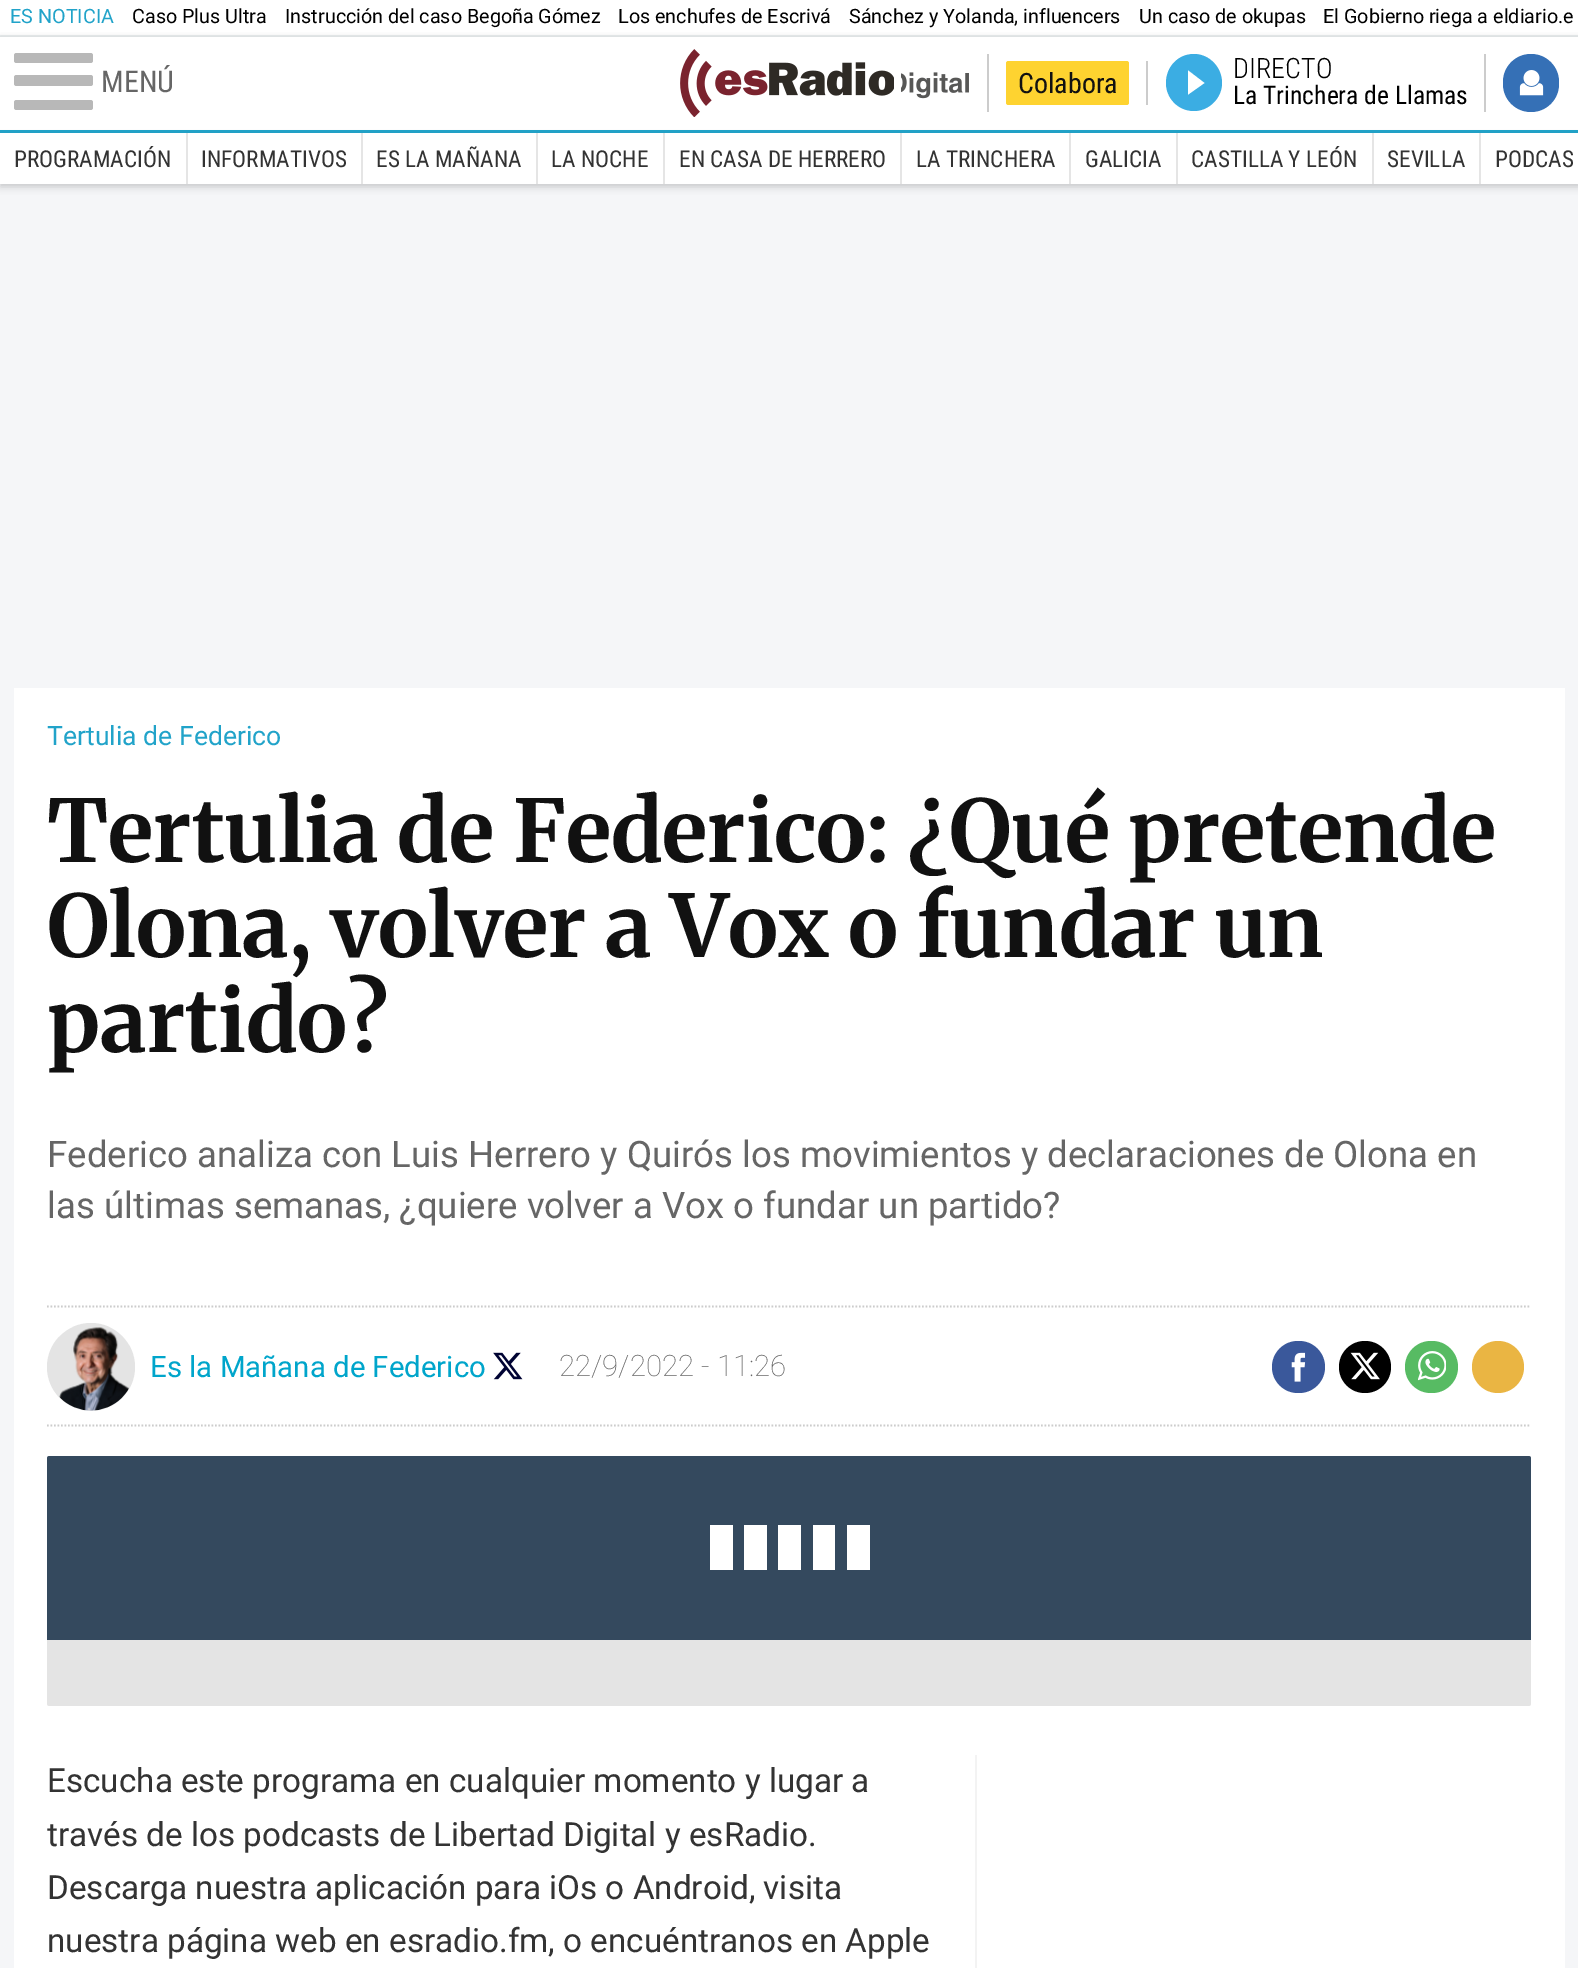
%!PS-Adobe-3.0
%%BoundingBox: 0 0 1578 1968
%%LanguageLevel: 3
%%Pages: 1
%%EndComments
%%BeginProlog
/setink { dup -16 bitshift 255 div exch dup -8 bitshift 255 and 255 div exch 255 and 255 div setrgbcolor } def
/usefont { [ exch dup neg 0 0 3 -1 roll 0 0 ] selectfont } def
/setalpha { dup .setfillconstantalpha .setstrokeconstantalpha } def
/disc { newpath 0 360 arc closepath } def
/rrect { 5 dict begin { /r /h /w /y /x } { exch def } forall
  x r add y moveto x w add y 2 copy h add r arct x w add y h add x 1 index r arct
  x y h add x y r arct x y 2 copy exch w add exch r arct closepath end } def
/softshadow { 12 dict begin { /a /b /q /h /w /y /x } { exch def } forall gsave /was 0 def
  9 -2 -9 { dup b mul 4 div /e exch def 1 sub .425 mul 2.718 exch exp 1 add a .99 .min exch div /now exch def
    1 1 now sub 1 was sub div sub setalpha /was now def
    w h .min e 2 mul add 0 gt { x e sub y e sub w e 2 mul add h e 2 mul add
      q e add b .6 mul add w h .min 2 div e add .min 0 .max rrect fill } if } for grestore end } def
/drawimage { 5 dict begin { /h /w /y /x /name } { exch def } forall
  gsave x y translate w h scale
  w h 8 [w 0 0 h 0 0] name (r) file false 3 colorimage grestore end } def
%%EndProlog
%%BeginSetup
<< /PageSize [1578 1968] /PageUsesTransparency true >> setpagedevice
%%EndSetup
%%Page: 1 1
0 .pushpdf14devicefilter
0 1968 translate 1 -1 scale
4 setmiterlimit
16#F5F6F8 setink
0 0 1578 1968 rectfill
16#FFFFFF setink
0 0 1578 35 rectfill
16#ECF0F1 setink
0 35 1578 2 rectfill
/Roboto-Regular 19.75 usefont
16#21A3C9 setink
10 23 moveto (ES NOTICIA) show
16#000000 setink
[
    [(Caso Plus Ultra) 132 23]
    [(Instrucción del caso Begoña Gómez) 285 23]
    [(Los enchufes de Escrivá) 618 23]
    [(Sánchez y Yolanda, influencers) 849 23]
    [(Un caso de okupas) 1139 23]
    [(El Gobierno riega a eldiario.e) 1323 23]
] { aload pop moveto show } forall
16#323232 setink
0 40 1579 97 0 3.5 0.44 softshadow
16#FFFFFF setink
0 37 1578 93 rectfill
16#21A3C9 setink
0 130 1578 3 rectfill
16#B8B8B8 setink
14 53 79 10 2.5 rrect fill
14 75 79 11 2.5 rrect fill
14 100 79 10 2.5 rrect fill
/RobotoCondensed-Regular 30 usefont
16#666666 setink
101 92 moveto (MENÚ) show
(img1.raw) 680 49 214 68 drawimage
16#CCCCCC setink
987 54 2 58 rectfill
(img2.raw) 901 72 68 27 drawimage
1146 61 2 44 rectfill
16#FED330 setink
1006 61 123 44 2.5 rrect fill
/RobotoCondensed-Regular 28 usefont
16#111111 setink
1018 93 moveto (Colabora) show
16#CCCCCC setink
1484 54 2 58 rectfill
16#3BADE3 setink
1194 54 moveto 1178 54 1166 67 1166 83 curveto 1166 98 1178 111 1194 111 curveto 1209 111 1222 98 1222 83 curveto 1222 67 1209 54 1194 54 curveto closepath 1188 95 moveto 1188 70 lineto 1205 83 lineto closepath fill
/RobotoCondensed-Light 28 usefont
16#000000 setink
1233 78 moveto (DIRECTO) show
/RobotoCondensed-Regular 25.5 usefont
1233 104 moveto (La Trinchera de Llamas) show
16#3570B6 setink
1503 54 56 58 28 rrect fill
(img3.raw) 1519 70 25 26 drawimage
16#323232 setink
0 137 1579 50 0 3.5 0.22 softshadow
16#FFFFFF setink
0 133 1578 51 rectfill
/RobotoCondensed-Regular 23.25 usefont
16#333333 setink
14 167 moveto (PROGRAMACIÓN) show
16#E5E5E5 setink
186 133 2 51 rectfill
16#333333 setink
201 167 moveto (INFORMATIVOS) show
16#E5E5E5 setink
361 133 2 51 rectfill
16#333333 setink
376 167 moveto (ES LA MAÑANA) show
16#E5E5E5 setink
536 133 2 51 rectfill
16#333333 setink
551 167 moveto (LA NOCHE) show
16#E5E5E5 setink
663 133 2 51 rectfill
16#333333 setink
679 167 moveto (EN CASA DE HERRERO) show
16#E5E5E5 setink
900 133 2 51 rectfill
16#333333 setink
916 167 moveto (LA TRINCHERA) show
16#E5E5E5 setink
1069 133 2 51 rectfill
16#333333 setink
1085 167 moveto (GALICIA) show
16#E5E5E5 setink
1176 133 2 51 rectfill
16#333333 setink
1191 167 moveto (CASTILLA Y LEÓN) show
16#E5E5E5 setink
1372 133 2 51 rectfill
16#333333 setink
1387 167 moveto (SEVILLA) show
16#E5E5E5 setink
1479 133 2 51 rectfill
16#333333 setink
1495 167 moveto (PODCAS) show
16#FFFFFF setink
14 688 1551 1280 rectfill
/Roboto-Regular 26.6 usefont
16#21A3C9 setink
47 745 moveto (Tertulia de Federico) show
/Merriweather-Bold 86 usefont
16#111111 setink
[
    [(Tertulia de Federico: ¿Qué pretende) 47 862]
    [(Olona, volver a Vox o fundar un) 47 957]
    [(partido?) 47 1052]
] { aload pop moveto show } forall
/Roboto-Regular 36.6 usefont
16#666666 setink
47 1167 moveto (Federico analiza con Luis Herrero y Quirós los movimientos y declaraciones de Olona en) show
47 1218 moveto (las últimas semanas, ¿quiere volver a Vox o fundar un partido?) show
16#CCCCCC setink
1.8 setlinewidth
[1.75 1.75] 0 setdash
47 1306.5 moveto 1531 1306.5 lineto stroke
47 1425.5 moveto 1531 1425.5 lineto stroke
16#E4E4E4 setink
91 1367 44 disc fill
(img4.raw) 59 1327 70 84 drawimage
/Roboto-Regular 29.4 usefont
16#00A5CB setink
150 1377 moveto (Es la Mañana de Federico) show
(img5.raw) 493 1352 30 28 drawimage
/Roboto-Thin 29.4 usefont
16#666666 setink
559 1376 moveto (22/9/2022 - 11:26) show
16#3A589B setink
1272 1341 53 52 26 rrect fill
(img6.raw) 1291 1352 15 30 drawimage
16#000000 setink
1365 1367 26 disc fill
(img7.raw) 1350 1352 30 28 drawimage
16#57BB63 setink
1405 1341 53 52 26 rrect fill
(img8.raw) 1418 1351 28 30 drawimage
16#EAB543 setink
1498 1367 26 disc fill
16#34495E setink
49.5 1456 moveto 1528.5 1456 lineto 1530 1456 1531 1457 1531 1458.5 curveto 1531 1640 lineto 47 1640 lineto 47 1458.5 lineto 47 1457 48 1456 49.5 1456 curveto closepath fill
[
    [710 1525 23 45 16#FFFFFF]
    [744 1525 23 45 16#FFFFFF]
    [778 1525 23 45 16#FFFFFF]
    [813 1525 22 45 16#FFFFFF]
    [847 1525 23 45 16#FFFFFF]
] { aload pop setink rectfill } forall
16#E4E4E4 setink
47 1640 moveto 1531 1640 lineto 1531 1703.5 lineto 1531 1705 1530 1706 1528.5 1706 curveto 49.5 1706 lineto 48 1706 47 1705 47 1703.5 curveto closepath fill
16#F3F3F3 setink
975 1755 2 213 rectfill
/Roboto-Regular 33.25 usefont
16#333333 setink
[
    [(Escucha este programa en cualquier momento y lugar a) 47 1792]
    [(través de los podcasts de Libertad Digital y esRadio.) 47 1846]
    [(Descarga nuestra aplicación para iOs o Android, visita) 47 1899]
    [(nuestra página web en esradio.fm, o encuéntranos en Apple) 47 1952]
] { aload pop moveto show } forall
.poppdf14devicefilter showpage
%%EOF
